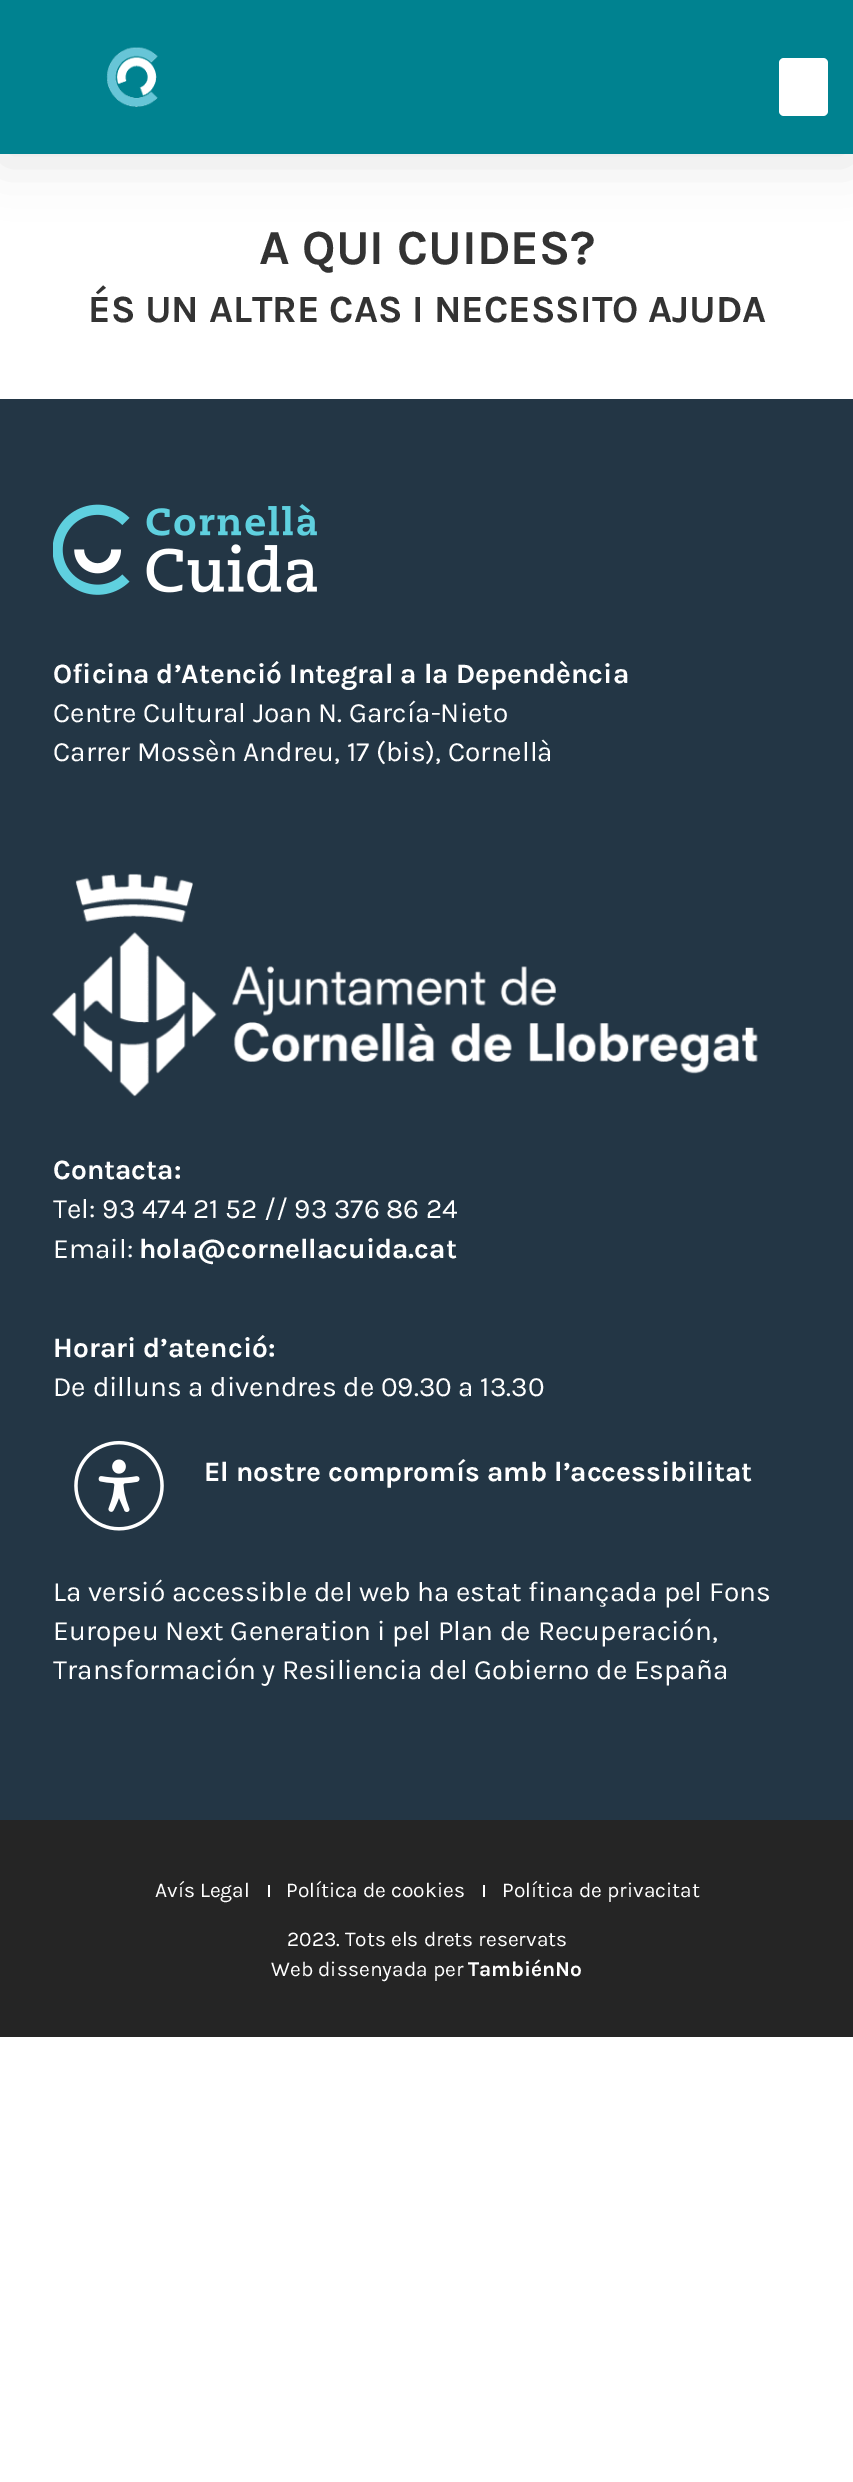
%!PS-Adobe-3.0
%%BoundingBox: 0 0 853 2482
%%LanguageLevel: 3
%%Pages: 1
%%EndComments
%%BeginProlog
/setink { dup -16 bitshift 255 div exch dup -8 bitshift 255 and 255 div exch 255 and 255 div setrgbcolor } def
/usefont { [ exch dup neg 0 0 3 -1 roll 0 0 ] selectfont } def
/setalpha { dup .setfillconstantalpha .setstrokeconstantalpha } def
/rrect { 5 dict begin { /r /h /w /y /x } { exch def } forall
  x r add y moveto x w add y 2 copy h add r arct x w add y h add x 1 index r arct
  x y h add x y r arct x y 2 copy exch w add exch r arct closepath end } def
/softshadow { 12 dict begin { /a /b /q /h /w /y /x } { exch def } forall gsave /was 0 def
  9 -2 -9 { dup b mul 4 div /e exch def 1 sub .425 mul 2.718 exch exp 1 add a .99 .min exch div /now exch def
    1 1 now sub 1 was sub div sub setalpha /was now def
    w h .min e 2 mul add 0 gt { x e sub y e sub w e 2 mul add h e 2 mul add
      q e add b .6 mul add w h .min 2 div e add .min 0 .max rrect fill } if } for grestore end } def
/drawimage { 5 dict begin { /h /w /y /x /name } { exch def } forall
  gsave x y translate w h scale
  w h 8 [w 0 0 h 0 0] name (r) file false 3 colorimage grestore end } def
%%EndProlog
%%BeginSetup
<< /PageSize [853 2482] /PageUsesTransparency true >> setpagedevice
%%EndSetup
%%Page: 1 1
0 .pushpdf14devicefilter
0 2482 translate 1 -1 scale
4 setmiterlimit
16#FFFFFF setink
0 0 853 2482 rectfill
16#000000 setink
0 9 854 154 0 26 0.1 softshadow
16#008290 setink
0 0 853 154 rectfill
(img1.raw) 106 47 52 60 drawimage
16#FFFFFF setink
779 58 49 58 5 rrect fill
/Karla-Bold 49 usefont
16#333333 setink
259 264 moveto (A QUI CUIDES?) show
/Karla-Bold 38.5 usefont
88 322 moveto (ÉS UN ALTRE CAS I NECESSITO AJUDA) show
16#233645 setink
0 399 853 1421 rectfill
(img2.raw) 53 504 264 91 drawimage
/Karla-Bold 28 usefont
16#FFFFFF setink
53 683 moveto (Oficina d’Atenció Integral a la Dependència) show
/Karla-Regular 28 usefont
53 722 moveto (Centre Cultural Joan N. García-Nieto) show
53 761 moveto (Carrer Mossèn Andreu, 17 \(bis\), Cornellà) show
(img3.raw) 52 873 706 224 drawimage
/Karla-Bold 28 usefont
53 1179 moveto (Contacta:) show
/Karla-Regular 28 usefont
53 1218 moveto (Tel: 93 474 21 52 // 93 376 86 24) show
53 1258 moveto (Email:) show
/Karla-Bold 28 usefont
139 1258 moveto (hola@cornellacuida.cat) show
53 1357 moveto (Horari d’atenció:) show
/Karla-Regular 28 usefont
53 1396 moveto (De dilluns a divendres de 09.30 a 13.30) show
(img4.raw) 74 1440 90 91 drawimage
/Karla-Bold 28 usefont
204 1481 moveto (El nostre compromís amb l’accessibilitat) show
/Karla-Regular 28 usefont
[
    [(La versió accessible del web ha estat finançada pel Fons) 53 1601]
    [(Europeu Next Generation i pel Plan de Recuperación,) 53 1640]
    [(Transformación y Resiliencia del Gobierno de España) 53 1679]
] { aload pop moveto show } forall
16#252525 setink
0 1820 853 217 rectfill
/Karla-Regular 21 usefont
16#FFFFFF setink
155 1897 moveto (Avís Legal) show
268 1885 2 12 rectfill
286 1897 moveto (Política de cookies) show
483 1885 2 12 rectfill
[
    [(Política de privacitat) 502 1897]
    [(2023. Tots els drets reservats) 287 1946]
    [(Web dissenyada per) 271 1976]
] { aload pop moveto show } forall
/Karla-Bold 21 usefont
468 1976 moveto (TambiénNo) show
.poppdf14devicefilter showpage
%%EOF
